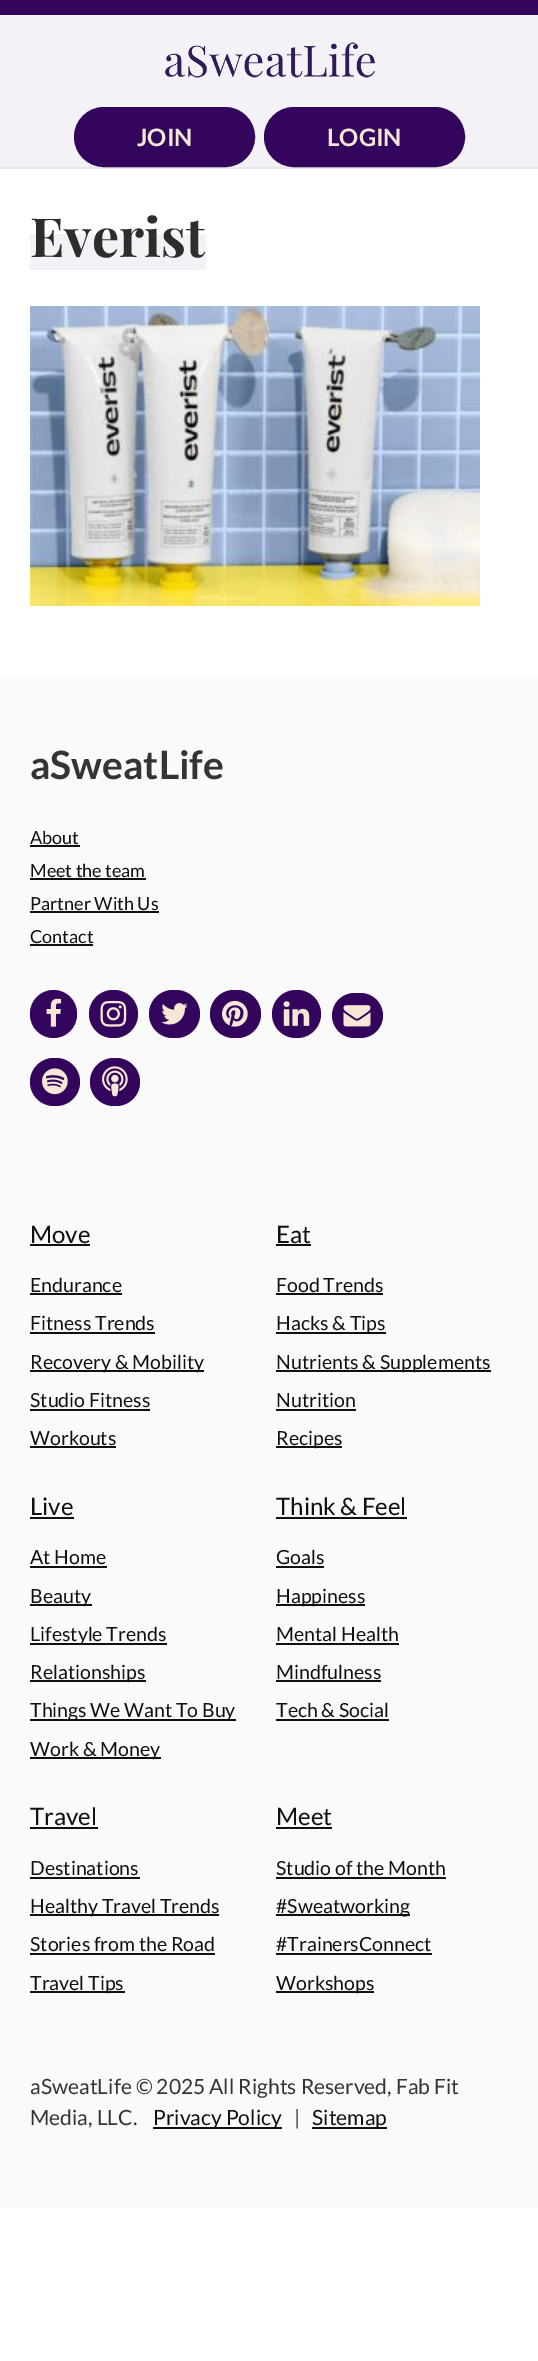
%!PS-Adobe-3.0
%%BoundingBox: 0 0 538 2361
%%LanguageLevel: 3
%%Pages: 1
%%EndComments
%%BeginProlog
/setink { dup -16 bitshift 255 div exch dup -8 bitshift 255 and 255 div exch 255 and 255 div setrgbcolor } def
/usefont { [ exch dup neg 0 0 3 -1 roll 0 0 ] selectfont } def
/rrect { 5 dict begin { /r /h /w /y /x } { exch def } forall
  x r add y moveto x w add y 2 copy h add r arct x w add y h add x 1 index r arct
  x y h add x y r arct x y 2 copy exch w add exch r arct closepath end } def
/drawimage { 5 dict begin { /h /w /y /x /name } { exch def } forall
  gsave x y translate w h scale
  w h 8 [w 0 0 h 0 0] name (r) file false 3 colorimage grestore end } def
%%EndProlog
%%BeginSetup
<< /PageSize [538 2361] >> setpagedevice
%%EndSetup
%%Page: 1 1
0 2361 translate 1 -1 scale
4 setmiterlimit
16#FFFFFF setink
0 0 538 2361 rectfill
[
    [0 167 538 2 16#E6E6E6]
    [0 0 538 15 16#33055D]
    [0 15 538 152 16#F5F2F7]
] { aload pop setink rectfill } forall
(img1.raw) 165 42 210 36 drawimage
16#33055D setink
75.5 108.5 178 57 28.5 rrect gsave fill grestore
3 setlinewidth
stroke
/Lato-Bold 24 usefont
16#F7E7D7 setink
137 146 moveto (JOIN) show
16#33055D setink
265.5 108.5 198 57 28.5 rrect gsave fill grestore
stroke
16#F7E7D7 setink
327 146 moveto (LOGIN) show
16#F5F2F7 setink
30 234 176 36 rectfill
/PlayfairDisplay-Bold 54 usefont
16#2D2D2D setink
30 257 moveto (Everist) show
(img2.raw) 30 306 450 300 drawimage
16#FAFAFA setink
0 678 538 1530 rectfill
/Lato-Bold 39 usefont
16#333535 setink
30 779 moveto (aSweatLife) show
/Lato-Regular 18 usefont
16#101010 setink
30 844 moveto (About) show
30 845 50 2 rectfill
30 877 moveto (Meet the team) show
30 878 116 2 rectfill
30 910 moveto (Partner With Us) show
30 911 129 2 rectfill
30 943 moveto (Contact) show
30 944 63 2 rectfill
16#33055D setink
30 990 47 48 23.5 rrect fill
(img3.raw) 46 998 16 29 drawimage
89 990 49 48 24 rrect fill
(img4.raw) 100 1000 27 27 drawimage
149 990 51 48 24 rrect fill
(img5.raw) 161 1003 27 22 drawimage
210 990 51 48 24 rrect fill
(img6.raw) 222 1000 26 27 drawimage
272 990 49 48 24 rrect fill
(img7.raw) 283 1001 27 25 drawimage
332 993 51 45 22.5 rrect fill
(img8.raw) 343 1005 28 22 drawimage
30 1058 50 48 24 rrect fill
(img9.raw) 42 1068 26 27 drawimage
90 1058 50 48 24 rrect fill
(img10.raw) 102 1066 26 31 drawimage
/Lato-Regular 24 usefont
16#101010 setink
30 1243 moveto (Move) show
30 1244 60 2 rectfill
/Lato-Regular 19.5 usefont
30 1292 moveto (Endurance) show
30 1293 92 2 rectfill
30 1330 moveto (Fitness Trends) show
30 1332 125 2 rectfill
30 1370 174 2 rectfill
30 1369 moveto (Recovery & Mobility) show
30 1407 moveto (Studio Fitness) show
30 1409 120 2 rectfill
30 1445 moveto (Workouts) show
30 1446 86 2 rectfill
/Lato-Regular 24 usefont
276 1243 moveto (Eat) show
276 1244 35 2 rectfill
/Lato-Regular 19.5 usefont
276 1292 moveto (Food Trends) show
276 1293 107 2 rectfill
276 1332 110 2 rectfill
276 1330 moveto (Hacks & Tips) show
276 1370 215 2 rectfill
276 1369 moveto (Nutrients & Supplements) show
276 1407 moveto (Nutrition) show
276 1409 80 2 rectfill
276 1446 66 2 rectfill
276 1445 moveto (Recipes) show
/Lato-Regular 24 usefont
30 1515 moveto (Live) show
30 1517 44 2 rectfill
/Lato-Regular 19.5 usefont
30 1564 moveto (At Home) show
30 1566 77 2 rectfill
30 1604 62 2 rectfill
30 1603 moveto (Beauty) show
30 1643 137 2 rectfill
30 1641 moveto (Lifestyle Trends) show
30 1680 116 2 rectfill
30 1679 moveto (Relationships) show
30 1719 206 2 rectfill
30 1717 moveto (Things We Want To Buy) show
30 1757 131 2 rectfill
30 1756 moveto (Work & Money) show
/Lato-Regular 24 usefont
276 1515 moveto (Think & Feel) show
276 1517 131 2 rectfill
/Lato-Regular 19.5 usefont
276 1564 moveto (Goals) show
276 1566 48 2 rectfill
276 1604 89 2 rectfill
276 1603 moveto (Happiness) show
276 1641 moveto (Mental Health) show
276 1643 123 2 rectfill
276 1679 moveto (Mindfulness) show
276 1680 105 2 rectfill
276 1717 moveto (Tech & Social) show
276 1719 113 2 rectfill
/Lato-Regular 24 usefont
30 1825 moveto (Travel) show
30 1827 68 2 rectfill
/Lato-Regular 19.5 usefont
30 1875 moveto (Destinations) show
30 1877 110 2 rectfill
30 1914 189 2 rectfill
30 1913 moveto (Healthy Travel Trends) show
30 1951 moveto (Stories from the Road) show
30 1953 185 2 rectfill
30 1991 95 2 rectfill
30 1990 moveto (Travel Tips) show
/Lato-Regular 24 usefont
276 1825 moveto (Meet) show
276 1827 56 2 rectfill
/Lato-Regular 19.5 usefont
276 1875 moveto (Studio of the Month) show
276 1877 170 2 rectfill
276 1914 134 2 rectfill
276 1913 moveto (#Sweatworking) show
276 1951 moveto (#TrainersConnect) show
276 1953 156 2 rectfill
276 1991 98 2 rectfill
276 1990 moveto (Workshops) show
/Lato-Regular 21 usefont
16#333535 setink
30 2094 moveto (aSweatLife © 2025 All Rights Reserved, Fab Fit) show
30 2125 moveto (Media, LLC.) show
16#101010 setink
153 2127 129 2 rectfill
153 2125 moveto (Privacy Policy) show
16#333535 setink
294 2125 moveto (|) show
16#101010 setink
312 2127 75 2 rectfill
312 2125 moveto (Sitemap) show
showpage
%%EOF
